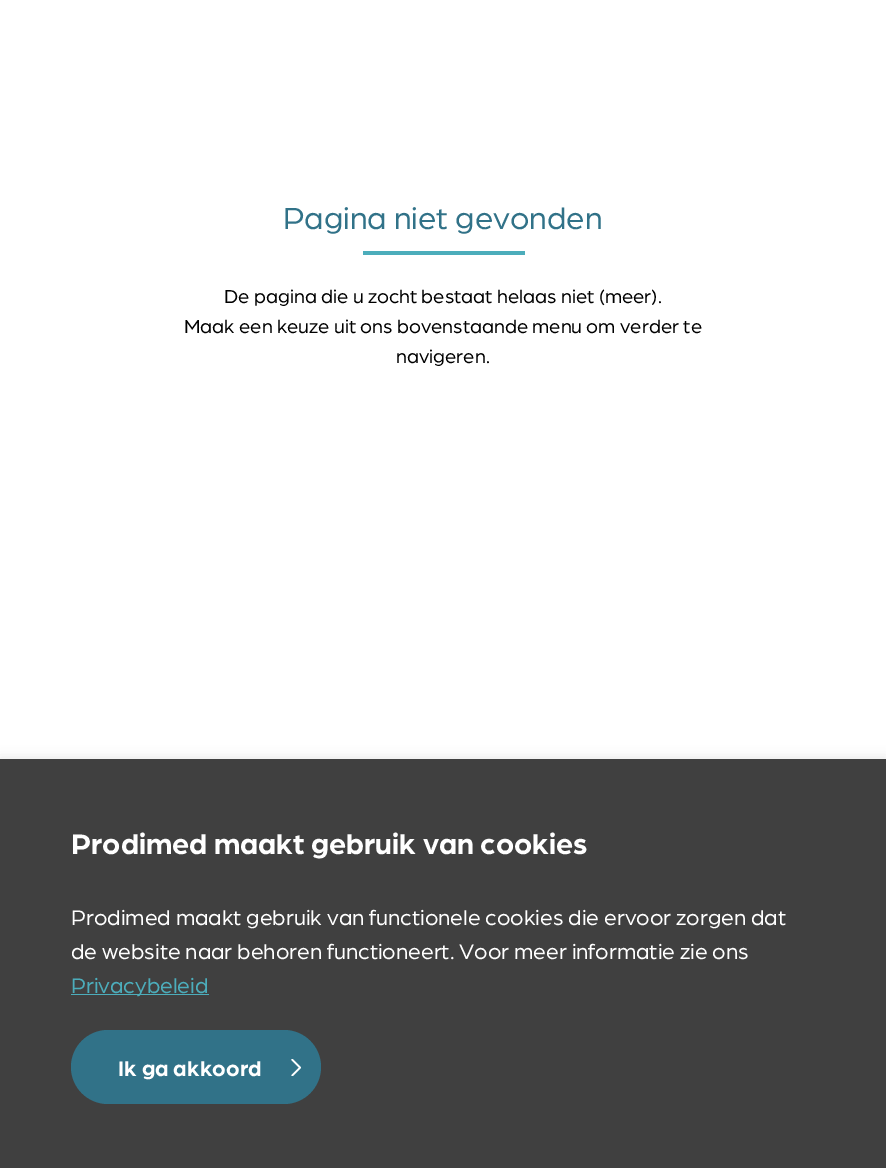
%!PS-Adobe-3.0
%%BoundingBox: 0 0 886 1168
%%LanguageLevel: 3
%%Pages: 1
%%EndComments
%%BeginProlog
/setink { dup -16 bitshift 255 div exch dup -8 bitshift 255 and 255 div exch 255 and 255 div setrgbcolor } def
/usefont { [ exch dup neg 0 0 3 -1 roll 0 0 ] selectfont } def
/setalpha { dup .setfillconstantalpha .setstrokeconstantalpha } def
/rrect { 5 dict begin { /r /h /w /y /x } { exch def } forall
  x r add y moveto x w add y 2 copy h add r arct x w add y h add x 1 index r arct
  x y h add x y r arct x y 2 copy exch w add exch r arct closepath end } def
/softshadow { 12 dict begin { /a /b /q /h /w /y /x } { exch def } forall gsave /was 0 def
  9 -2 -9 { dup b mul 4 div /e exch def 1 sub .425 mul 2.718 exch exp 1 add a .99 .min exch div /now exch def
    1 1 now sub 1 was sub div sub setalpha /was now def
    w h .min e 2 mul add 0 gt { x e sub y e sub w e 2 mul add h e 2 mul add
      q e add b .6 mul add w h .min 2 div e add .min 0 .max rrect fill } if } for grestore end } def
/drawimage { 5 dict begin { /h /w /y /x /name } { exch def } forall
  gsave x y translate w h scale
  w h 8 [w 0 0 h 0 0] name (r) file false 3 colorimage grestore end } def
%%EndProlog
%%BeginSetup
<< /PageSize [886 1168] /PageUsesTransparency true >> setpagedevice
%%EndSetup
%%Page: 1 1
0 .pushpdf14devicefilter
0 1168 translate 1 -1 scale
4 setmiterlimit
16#FFFFFF setink
0 0 886 1168 rectfill
/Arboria-Regular 32.5 usefont
16#317288 setink
283 229 moveto (Pagina niet gevonden) show
16#4CADBB setink
363 251 162 4 rectfill
/Arboria-Regular 20 usefont
16#000000 setink
[
    [(De pagina die u zocht bestaat helaas niet \(meer\).) 224 303]
    [(Maak een keuze uit ons bovenstaande menu om verder te) 184 333]
    [(navigeren.) 396 363]
] { aload pop moveto show } forall
16#ACABAB setink
0 758 886 410 0 6 0.3 softshadow
16#404040 setink
0 759 886 409 rectfill
/Arboria-Bold 30 usefont
16#FFFFFF setink
71 854 moveto (Prodimed maakt gebruik van cookies) show
/Arboria-Regular 22.5 usefont
71 925 moveto (Prodimed maakt gebruik van functionele cookies die ervoor zorgen dat) show
71 959 moveto (de website naar behoren functioneert. Voor meer informatie zie ons) show
16#4CADBB setink
71 994 138 1 rectfill
71 993 moveto (Privacybeleid) show
16#317288 setink
71 1030 250 74 37 rrect fill
/Arboria-Bold 22.5 usefont
16#FFFFFF setink
118 1076 moveto (Ik ga akkoord) show
(img1.raw) 291 1059 10 17 drawimage
.poppdf14devicefilter showpage
%%EOF
